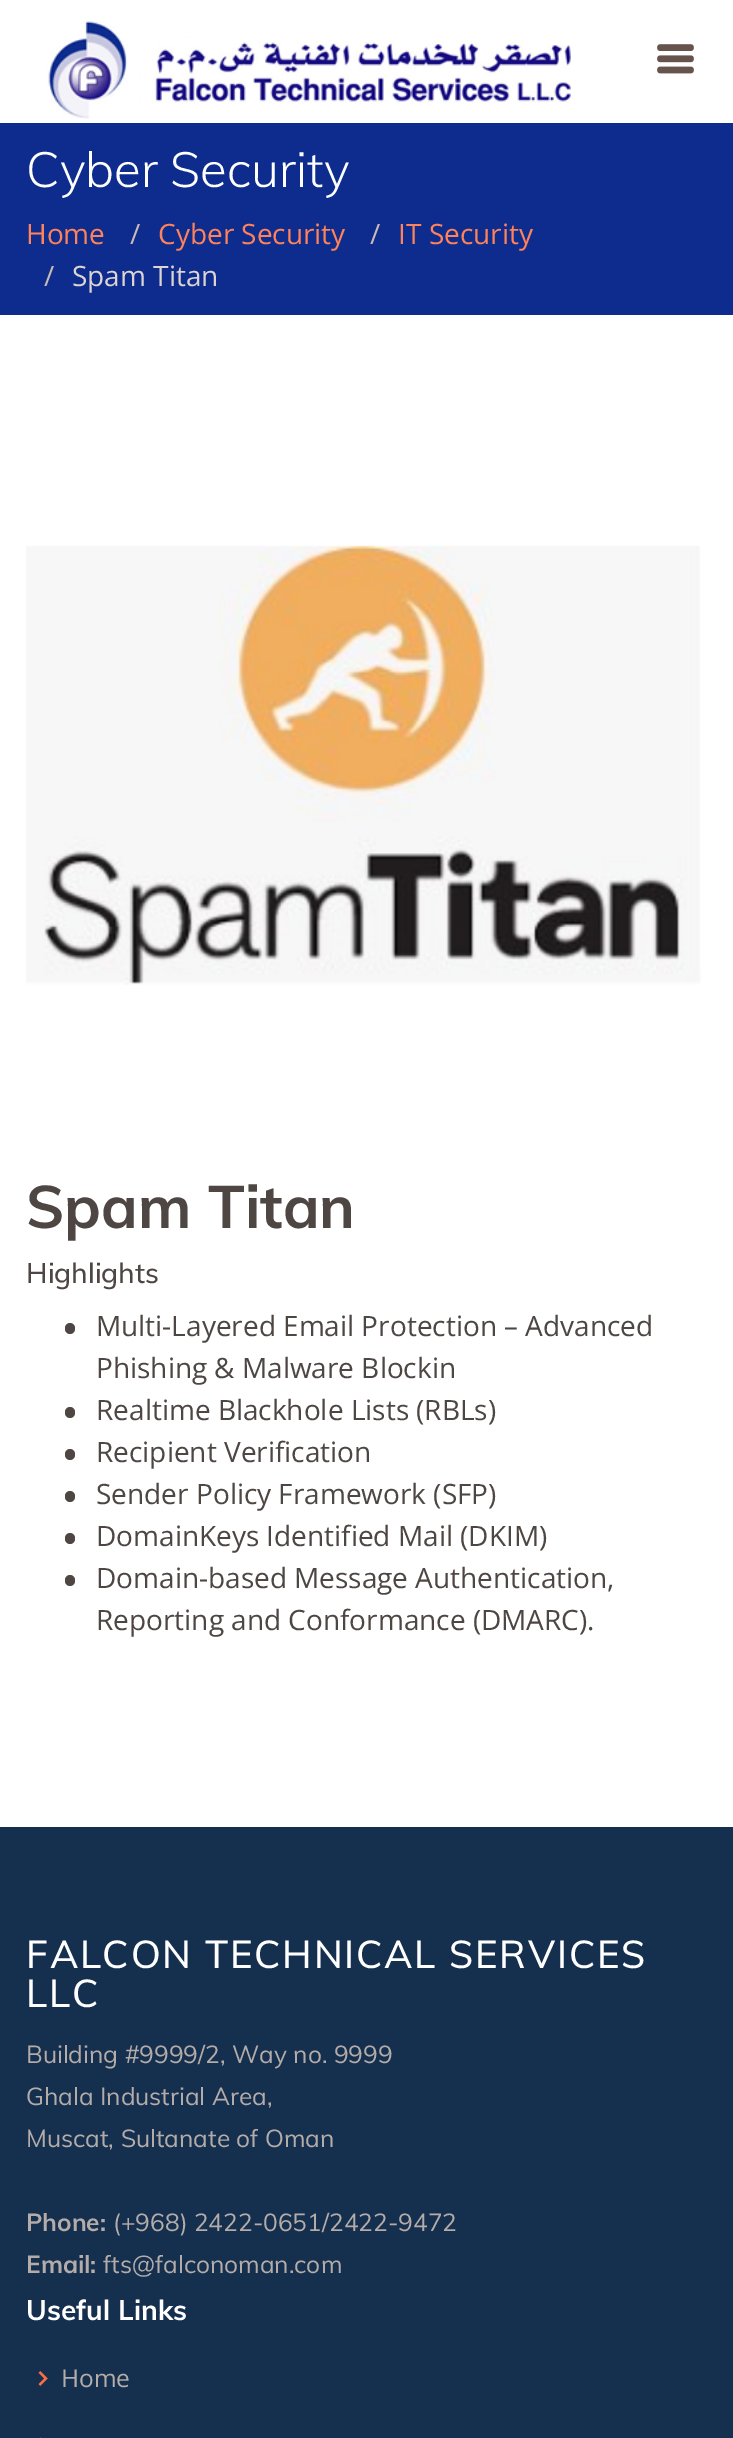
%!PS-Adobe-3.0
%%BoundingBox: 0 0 733 2438
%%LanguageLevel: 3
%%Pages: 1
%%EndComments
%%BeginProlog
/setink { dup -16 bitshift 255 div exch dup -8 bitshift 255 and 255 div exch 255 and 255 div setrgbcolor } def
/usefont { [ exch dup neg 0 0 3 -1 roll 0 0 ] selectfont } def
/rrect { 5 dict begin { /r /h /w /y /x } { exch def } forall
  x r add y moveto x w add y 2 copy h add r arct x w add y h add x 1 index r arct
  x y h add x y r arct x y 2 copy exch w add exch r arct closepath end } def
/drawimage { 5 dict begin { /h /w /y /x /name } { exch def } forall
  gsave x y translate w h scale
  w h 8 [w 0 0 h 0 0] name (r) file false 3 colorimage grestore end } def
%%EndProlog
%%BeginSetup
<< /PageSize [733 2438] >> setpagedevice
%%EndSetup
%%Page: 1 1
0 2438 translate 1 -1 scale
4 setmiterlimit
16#FFFFFF setink
0 0 733 2438 rectfill
(img1.raw) 46 21 525 98 drawimage
(img2.raw) 657 44 37 30 drawimage
16#0D2C8D setink
0 123 733 192 rectfill
/Muli-Light 49 usefont
16#FFFFFF setink
26 187 moveto (Cyber Security) show
/OpenSans-Regular 28 usefont
16#FE825A setink
26 244 moveto (Home) show
16#C8BAB5 setink
130 244 moveto (/) show
16#FE825A setink
158 244 moveto (Cyber Security) show
16#C8BAB5 setink
370 244 moveto (/) show
16#FE825A setink
398 244 moveto (IT Security) show
16#C8BAB5 setink
44 286 moveto (/) show
16#DED5D2 setink
72 286 moveto (Spam Titan) show
(img3.raw) 26 545 675 440 drawimage
/Muli-Bold 59.5 usefont
16#4D4643 setink
26 1228 moveto (Spam Titan) show
/Muli-Medium 28 usefont
26 1283 moveto (Highlights) show
65 1323 10 11 5 rrect fill
/OpenSans-Regular 28 usefont
96 1336 moveto (Multi-Layered Email Protection – Advanced) show
96 1378 moveto (Phishing & Malware Blockin) show
65 1407 10 11 5 rrect fill
96 1420 moveto (Realtime Blackhole Lists \(RBLs\)) show
65 1449 10 11 5 rrect fill
96 1462 moveto (Recipient Verification) show
65 1491 10 11 5 rrect fill
96 1504 moveto (Sender Policy Framework \(SFP\)) show
65 1533 10 11 5 rrect fill
96 1546 moveto (DomainKeys Identified Mail \(DKIM\)) show
65 1575 10 11 5 rrect fill
96 1588 moveto (Domain-based Message Authentication,) show
96 1630 moveto (Reporting and Conformance \(DMARC\).) show
16#152F4F setink
0 1827 733 611 rectfill
/Muli-Medium 38.5 usefont
16#FFFFFF setink
26 1968 moveto 1.75 0 (FALCON TECHNICAL SERVICES) ashow
26 2007 moveto 1.75 0 (LLC) ashow
/Muli-Regular 24.5 usefont
16#B4ACA8 setink
[
    [(Building #9999/2, Way no. 9999) 26 2063]
    [(Ghala Industrial Area,) 26 2105]
    [(Muscat, Sultanate of Oman) 26 2147]
] { aload pop moveto show } forall
/Muli-Bold 24.5 usefont
26 2231 moveto (Phone:) show
/Muli-Regular 24.5 usefont
113 2231 moveto (\(+968\) 2422-0651/2422-9472) show
/Muli-Bold 24.5 usefont
26 2273 moveto (Email:) show
/Muli-Regular 24.5 usefont
103 2273 moveto (fts@falconoman.com) show
/Muli-Bold 28 usefont
16#FFFFFF setink
26 2320 moveto (Useful Links) show
(img4.raw) 38 2371 10 15 drawimage
/OpenSans-Regular 24.5 usefont
16#B4ACA8 setink
61 2387 moveto (Home) show
(img5.raw) 40 2437 1 1 drawimage
showpage
%%EOF
